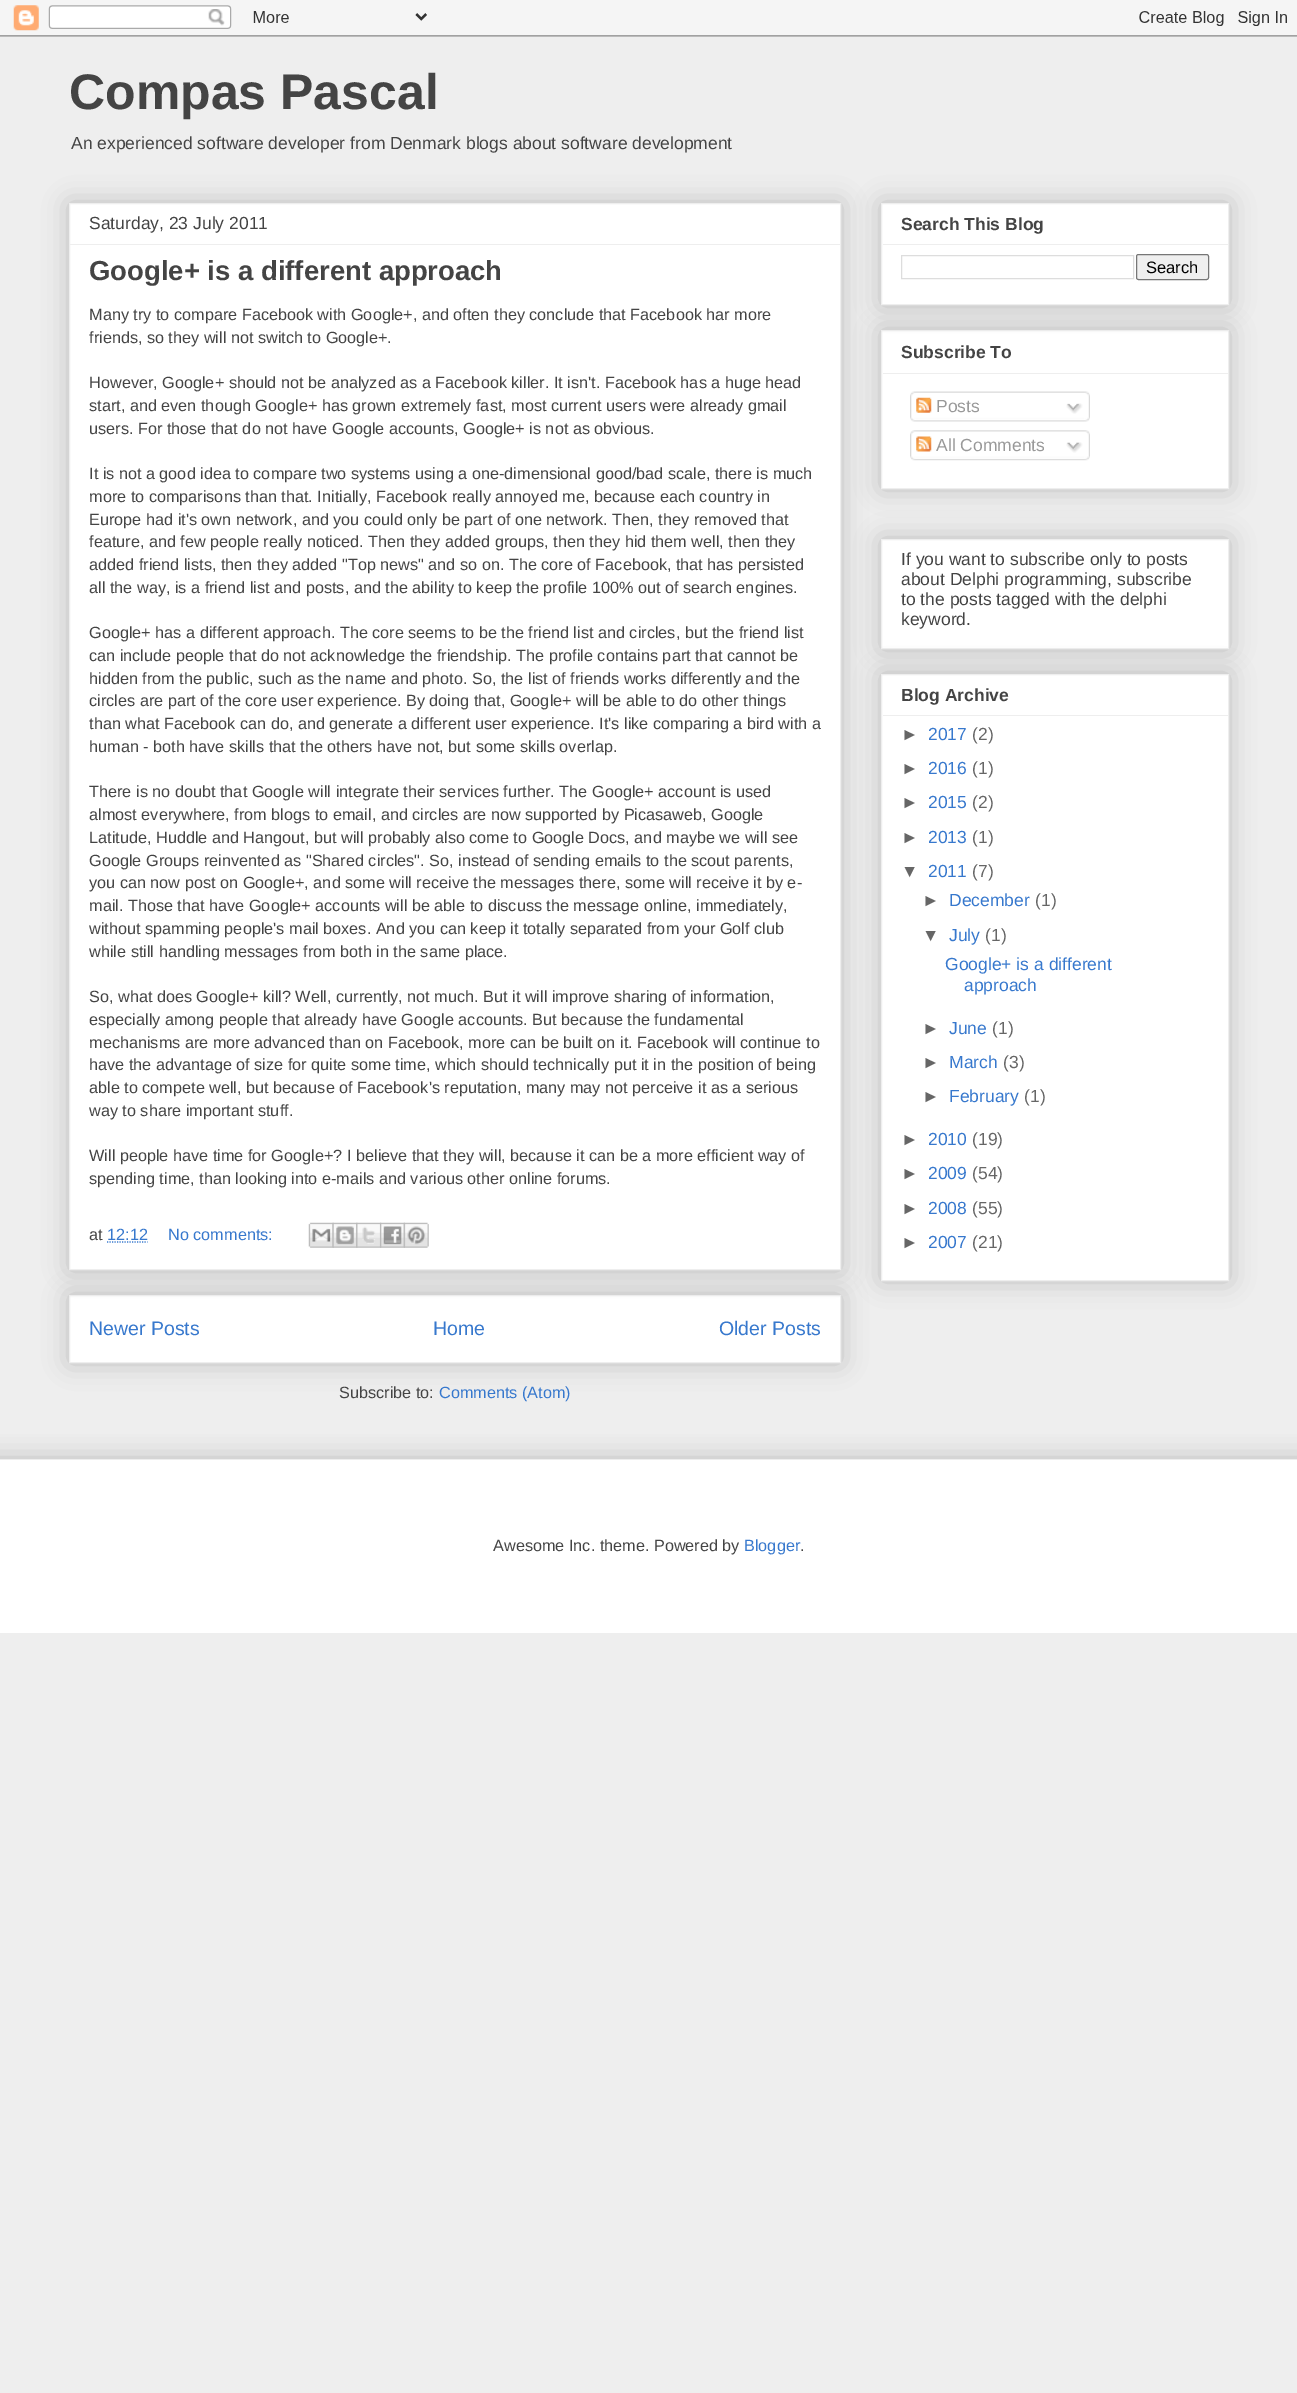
%!PS-Adobe-3.0
%%BoundingBox: 0 0 1297 2393
%%LanguageLevel: 3
%%Pages: 1
%%EndComments
%%BeginProlog
/setink { dup -16 bitshift 255 div exch dup -8 bitshift 255 and 255 div exch 255 and 255 div setrgbcolor } def
/usefont { [ exch dup neg 0 0 3 -1 roll 0 0 ] selectfont } def
/setalpha { dup .setfillconstantalpha .setstrokeconstantalpha } def
/rrect { 5 dict begin { /r /h /w /y /x } { exch def } forall
  x r add y moveto x w add y 2 copy h add r arct x w add y h add x 1 index r arct
  x y h add x y r arct x y 2 copy exch w add exch r arct closepath end } def
/softshadow { 12 dict begin { /a /b /q /h /w /y /x } { exch def } forall gsave /was 0 def
  9 -2 -9 { dup b mul 4 div /e exch def 1 sub .425 mul 2.718 exch exp 1 add a .99 .min exch div /now exch def
    1 1 now sub 1 was sub div sub setalpha /was now def
    w h .min e 2 mul add 0 gt { x e sub y e sub w e 2 mul add h e 2 mul add
      q e add b .6 mul add w h .min 2 div e add .min 0 .max rrect fill } if } for grestore end } def
/drawimage { 5 dict begin { /h /w /y /x /name } { exch def } forall
  gsave x y translate w h scale
  w h 8 [w 0 0 h 0 0] name (r) file false 3 colorimage grestore end } def
%%EndProlog
%%BeginSetup
<< /PageSize [1297 2393] /PageUsesTransparency true >> setpagedevice
%%EndSetup
%%Page: 1 1
0 .pushpdf14devicefilter
0 2393 translate 1 -1 scale
4 setmiterlimit
16#EEEEEE setink
0 0 1297 2393 rectfill
(img1.raw) 0 0 1297 37 drawimage
/LiberationSans-Bold 50 usefont
16#444444 setink
69 109 moveto (Compas Pascal) show
/LiberationSans-Regular 17.5 usefont
71 149 moveto (An experienced software developer from Denmark blogs about software development) show
16#000000 setink
69 1295 772 68 0 12.5 0.2 softshadow
16#FFFFFF setink
69.5 1295.5 moveto 840.5 1295.5 lineto 840.5 1362.5 lineto 69.5 1362.5 lineto closepath gsave fill grestore
16#EEEEEE setink
stroke
16#000000 setink
69 203 772 1067 0 12.5 0.2 softshadow
16#FFFFFF setink
69.5 203.5 moveto 840.5 203.5 lineto 840.5 1269.5 lineto 69.5 1269.5 lineto closepath gsave fill grestore
16#EEEEEE setink
stroke
16#444444 setink
89 229 moveto (Saturday, 23 July 2011) show
16#EEEEEE setink
70 244 770 1 rectfill
/LiberationSans-Bold 27.5 usefont
16#444444 setink
89 280 moveto (Google+ is a different approach) show
/LiberationSans-Regular 16.25 usefont
[
    [(Many try to compare Facebook with Google+, and often they conclude that Facebook har more) 89 320]
    [(friends, so they will not switch to Google+.) 89 343]
    [(However, Google+ should not be analyzed as a Facebook killer. It isn't. Facebook has a huge head) 89 388]
    [(start, and even though Google+ has grown extremely fast, most current users were already gmail) 89 411]
    [(users. For those that do not have Google accounts, Google+ is not as obvious.) 89 434]
    [(It is not a good idea to compare two systems using a one-dimensional good/bad scale, there is much) 89 479]
    [(more to comparisons than that. Initially, Facebook really annoyed me, because each country in) 89 502]
    [(Europe had it's own network, and you could only be part of one network. Then, they removed that) 89 525]
    [(feature, and few people really noticed. Then they added groups, then they hid them well, then they) 89 547]
    [(added friend lists, then they added "Top news" and so on. The core of Facebook, that has persisted) 89 570]
    [(all the way, is a friend list and posts, and the ability to keep the profile 100% out of search engines.) 89 593]
    [(Google+ has a different approach. The core seems to be the friend list and circles, but the friend list) 89 638]
    [(can include people that do not acknowledge the friendship. The profile contains part that cannot be) 89 661]
    [(hidden from the public, such as the name and photo. So, the list of friends works differently and the) 89 684]
    [(circles are part of the core user experience. By doing that, Google+ will be able to do other things) 89 706]
    [(than what Facebook can do, and generate a different user experience. It's like comparing a bird with a) 89 729]
    [(human - both have skills that the others have not, but some skills overlap.) 89 752]
    [(There is no doubt that Google will integrate their services further. The Google+ account is used) 89 797]
    [(almost everywhere, from blogs to email, and circles are now supported by Picasaweb, Google) 89 820]
    [(Latitude, Huddle and Hangout, but will probably also come to Google Docs, and maybe we will see) 89 843]
    [(Google Groups reinvented as "Shared circles". So, instead of sending emails to the scout parents,) 89 866]
    [(you can now post on Google+, and some will receive the messages there, some will receive it by e-) 89 888]
    [(mail. Those that have Google+ accounts will be able to discuss the message online, immediately,) 89 911]
    [(without spamming people's mail boxes. And you can keep it totally separated from your Golf club) 89 934]
    [(while still handling messages from both in the same place.) 89 957]
    [(So, what does Google+ kill? Well, currently, not much. But it will improve sharing of information,) 89 1002]
    [(especially among people that already have Google accounts. But because the fundamental) 89 1025]
    [(mechanisms are more advanced than on Facebook, more can be built on it. Facebook will continue to) 89 1048]
    [(have the advantage of size for quite some time, which should technically put it in the position of being) 89 1070]
    [(able to compete well, but because of Facebook's reputation, many may not perceive it as a serious) 89 1093]
    [(way to share important stuff.) 89 1116]
    [(Will people have time for Google+? I believe that they will, because it can be a more efficient way of) 89 1161]
    [(spending time, than looking into e-mails and various other online forums.) 89 1184]
    [(at) 89 1240]
] { aload pop moveto show } forall
16#3778CD setink
107 1240 moveto (12:12) show
1.2 setlinewidth
[1.25 1.25] 0 setdash
107 1242 moveto 147.5 1242 lineto stroke
168 1240 moveto (No comments:) show
(img2.raw) 308 1222 26 26 drawimage
(img3.raw) 332 1222 26 26 drawimage
(img4.raw) 356 1222 26 26 drawimage
(img5.raw) 380 1222 25 26 drawimage
(img6.raw) 403 1222 26 26 drawimage
/LiberationSans-Regular 19.5 usefont
[
    [(Newer Posts) 89 1335]
    [(Home) 433 1335]
    [(Older Posts) 719 1335]
] { aload pop moveto show } forall
/LiberationSans-Regular 16.25 usefont
16#444444 setink
339 1398 moveto (Subscribe to:) show
16#3778CD setink
439 1398 moveto (Comments \(Atom\)) show
16#000000 setink
881 330 348 159 0 12.5 0.2 softshadow
16#FFFFFF setink
881.5 330.5 moveto 1228.5 330.5 lineto 1228.5 488.5 lineto 881.5 488.5 lineto closepath gsave fill grestore
16#EEEEEE setink
1 setlinewidth
[] 0 setdash
stroke
16#000000 setink
881 203 348 102 0 12.5 0.2 softshadow
16#FFFFFF setink
881.5 203.5 moveto 1228.5 203.5 lineto 1228.5 304.5 lineto 881.5 304.5 lineto closepath gsave fill grestore
16#EEEEEE setink
stroke
/LiberationSans-Bold 17.5 usefont
16#444444 setink
901 230 moveto (Search This Blog) show
16#EEEEEE setink
883 244 345 1 rectfill
16#DDDDDD setink
901.5 255.5 232 23 rectstroke
16#EFEFEF setink
1136.5 254.5 72 25 2 rrect gsave fill grestore
16#767676 setink
stroke
/LiberationSans-Regular 16.5 usefont
16#000000 setink
1146 273 moveto (Search) show
/LiberationSans-Bold 17.5 usefont
16#444444 setink
901 358 moveto (Subscribe To) show
16#EEEEEE setink
883 373 345 1 rectfill
(img7.raw) 910 391 180 27 drawimage
(img8.raw) 916 397 16 16 drawimage
/LiberationSans-Regular 17.5 usefont
16#999999 setink
936 412 moveto (Posts) show
(img9.raw) 1066 403 17 11 drawimage
(img10.raw) 910 417 180 5 drawimage
(img11.raw) 910 430 180 27 drawimage
(img12.raw) 916 436 16 16 drawimage
936 451 moveto (All Comments) show
(img13.raw) 1066 442 17 11 drawimage
(img14.raw) 910 456 180 5 drawimage
16#000000 setink
881 539 348 110 0 12.5 0.2 softshadow
16#FFFFFF setink
881.5 539.5 moveto 1228.5 539.5 lineto 1228.5 648.5 lineto 881.5 648.5 lineto closepath gsave fill grestore
16#EEEEEE setink
stroke
16#444444 setink
[
    [(If you want to subscribe only to posts) 901 565]
    [(about Delphi programming, subscribe) 901 585]
    [(to the posts tagged with the delphi) 901 605]
    [(keyword.) 901 625]
] { aload pop moveto show } forall
16#000000 setink
881 674 348 607 0 12.5 0.2 softshadow
16#FFFFFF setink
881.5 674.5 moveto 1228.5 674.5 lineto 1228.5 1280.5 lineto 881.5 1280.5 lineto closepath gsave fill grestore
16#EEEEEE setink
stroke
/LiberationSans-Bold 17.5 usefont
16#444444 setink
901 701 moveto (Blog Archive) show
16#EEEEEE setink
883 715 345 1 rectfill
/LiberationSans-Regular 17.5 usefont
16#666666 setink
901 740 moveto (►) show
16#3778CD setink
928 740 moveto (2017) show
16#666666 setink
972 740 moveto (\(2\)) show
901 774 moveto (►) show
16#3778CD setink
928 774 moveto (2016) show
16#666666 setink
972 774 moveto (\(1\)) show
901 808 moveto (►) show
16#3778CD setink
928 808 moveto (2015) show
16#666666 setink
972 808 moveto (\(2\)) show
901 843 moveto (►) show
16#3778CD setink
928 843 moveto (2013) show
16#666666 setink
972 843 moveto (\(1\)) show
901 877 moveto (▼) show
16#3778CD setink
928 877 moveto (2011) show
16#666666 setink
972 877 moveto (\(7\)) show
922 906 moveto (►) show
16#3778CD setink
949 906 moveto (December) show
16#666666 setink
1035 906 moveto (\(1\)) show
922 941 moveto (▼) show
16#3778CD setink
949 941 moveto (July) show
16#666666 setink
985 941 moveto (\(1\)) show
16#3778CD setink
945 970 moveto (Google+ is a different) show
964 991 moveto (approach) show
16#666666 setink
922 1034 moveto (►) show
16#3778CD setink
949 1034 moveto (June) show
16#666666 setink
992 1034 moveto (\(1\)) show
922 1068 moveto (►) show
16#3778CD setink
949 1068 moveto (March) show
16#666666 setink
1003 1068 moveto (\(3\)) show
922 1102 moveto (►) show
16#3778CD setink
949 1102 moveto (February) show
16#666666 setink
1024 1102 moveto (\(1\)) show
901 1145 moveto (►) show
16#3778CD setink
928 1145 moveto (2010) show
16#666666 setink
972 1145 moveto (\(19\)) show
901 1179 moveto (►) show
16#3778CD setink
928 1179 moveto (2009) show
16#666666 setink
972 1179 moveto (\(54\)) show
901 1214 moveto (►) show
16#3778CD setink
928 1214 moveto (2008) show
16#666666 setink
972 1214 moveto (\(55\)) show
901 1248 moveto (►) show
16#3778CD setink
928 1248 moveto (2007) show
16#666666 setink
972 1248 moveto (\(21\)) show
gsave
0 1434 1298 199 rectclip
16#000000 setink
-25 1459 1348 174 0 12.5 0.2 softshadow
grestore
16#FFFFFF setink
0 1460 1297 173 rectfill
16#EEEEEE setink
0 1459 1297 1 rectfill
/LiberationSans-Regular 16.25 usefont
16#444444 setink
493 1551 moveto (Awesome Inc. theme. Powered by) show
16#3778CD setink
744 1551 moveto (Blogger) show
16#444444 setink
800 1551 moveto (.) show
.poppdf14devicefilter showpage
%%EOF
